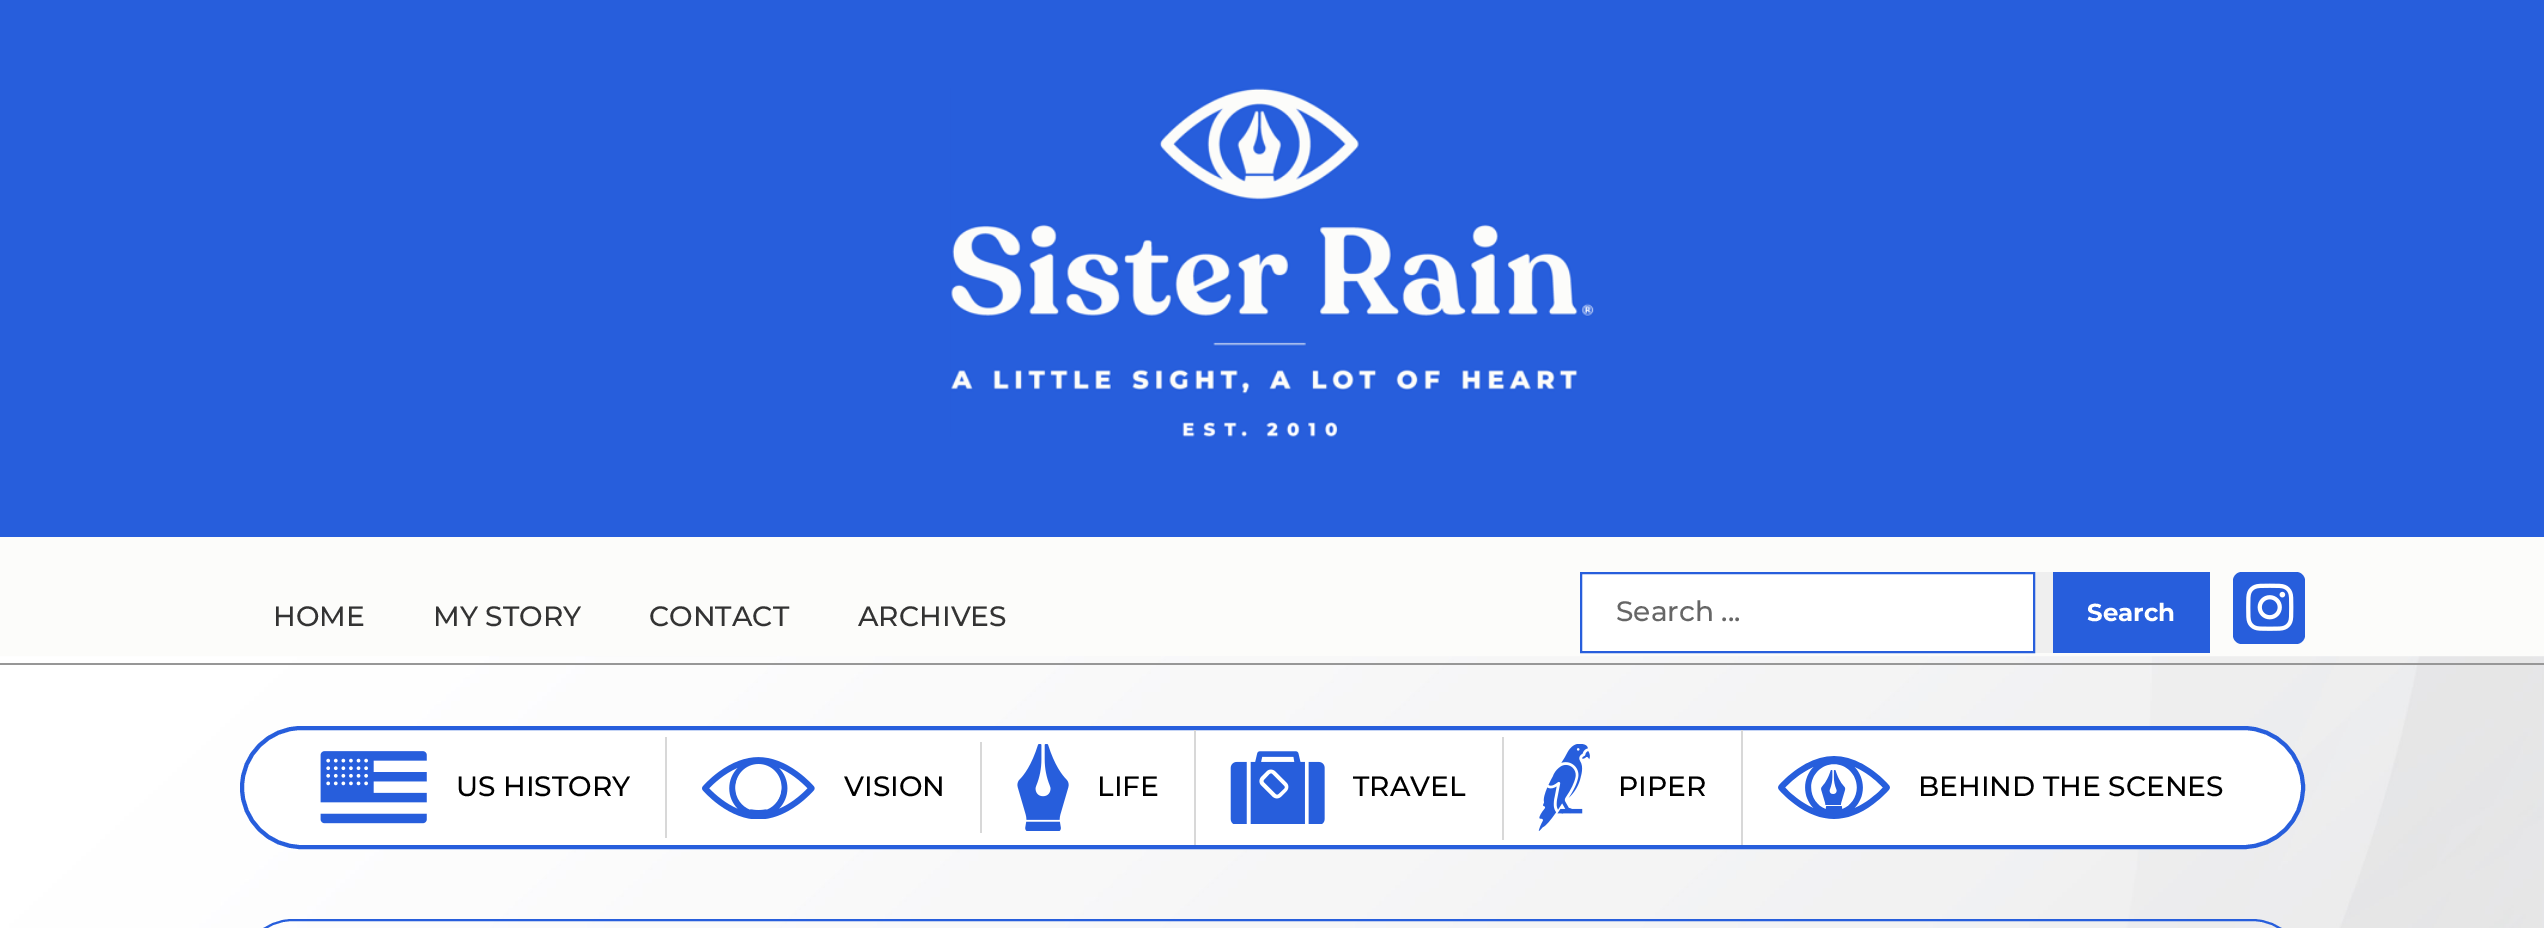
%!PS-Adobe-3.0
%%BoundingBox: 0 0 2544 928
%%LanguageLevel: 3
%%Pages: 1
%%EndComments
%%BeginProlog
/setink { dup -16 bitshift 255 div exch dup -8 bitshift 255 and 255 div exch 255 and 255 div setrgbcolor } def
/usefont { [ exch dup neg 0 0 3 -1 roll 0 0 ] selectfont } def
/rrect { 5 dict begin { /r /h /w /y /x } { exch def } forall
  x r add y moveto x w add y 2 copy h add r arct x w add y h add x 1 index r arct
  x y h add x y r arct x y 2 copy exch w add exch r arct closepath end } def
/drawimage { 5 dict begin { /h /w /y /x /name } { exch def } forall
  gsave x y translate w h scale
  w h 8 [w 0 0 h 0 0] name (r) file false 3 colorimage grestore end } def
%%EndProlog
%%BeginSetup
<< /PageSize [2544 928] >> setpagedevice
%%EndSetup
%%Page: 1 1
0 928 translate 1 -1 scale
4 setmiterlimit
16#FCFCFA setink
0 0 2544 928 rectfill
16#275EDC setink
0 0 2544 537 rectfill
(img1.raw) 950 88 644 349 drawimage
(img3.raw) 0 656 2544 272 drawimage
16#979797 setink
0 663 2544 2 rectfill
/Montserrat-Medium 28 usefont
16#333333 setink
[
    [(HOME) 273 626]
    [(MY STORY) 433 626]
    [(CONTACT) 649 626]
    [(ARCHIVES) 858 626]
] { aload pop moveto show } forall
16#EFEFEF setink
2035 572 18 81 rectfill
16#FFFFFF setink
1581 573 moveto 2034 573 lineto 2034 652 lineto 1581 652 lineto closepath gsave fill grestore
16#275EDC setink
2 setlinewidth
stroke
16#666666 setink
1616 621 moveto (Search ...) show
16#275EDC setink
2053 572 157 81 rectfill
/Montserrat-Bold 24.5 usefont
16#FFFFFF setink
2087 621 moveto (Search) show
16#275EDC setink
2233 572 72 72 9 rrect fill
(img2.raw) 2246 583 48 48 drawimage
241 920 2063 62 52 rrect stroke
16#FFFFFF setink
242 728 2061 119 59.5 rrect gsave fill grestore
16#275EDC setink
4 setlinewidth
stroke
16#D8D8D8 setink
665 737 2 101 rectfill
(img4.raw) 320 751 107 73 drawimage
/Montserrat-Medium 28 usefont
16#000000 setink
456 796 moveto (US HISTORY) show
16#D8D8D8 setink
980 742 2 91 rectfill
(img5.raw) 702 757 113 62 drawimage
16#000000 setink
844 796 moveto (VISION) show
16#D8D8D8 setink
1194 730 2 115 rectfill
(img6.raw) 1017 744 52 87 drawimage
16#000000 setink
1097 796 moveto (LIFE) show
16#D8D8D8 setink
1502 737 2 103 rectfill
(img7.raw) 1230 751 95 73 drawimage
16#000000 setink
1353 796 moveto (TRAVEL) show
16#D8D8D8 setink
1741 730 2 115 rectfill
(img8.raw) 1538 744 52 87 drawimage
16#000000 setink
1618 796 moveto (PIPER) show
(img9.raw) 1778 756 112 63 drawimage
1918 796 moveto (BEHIND THE SCENES) show
showpage
%%EOF
